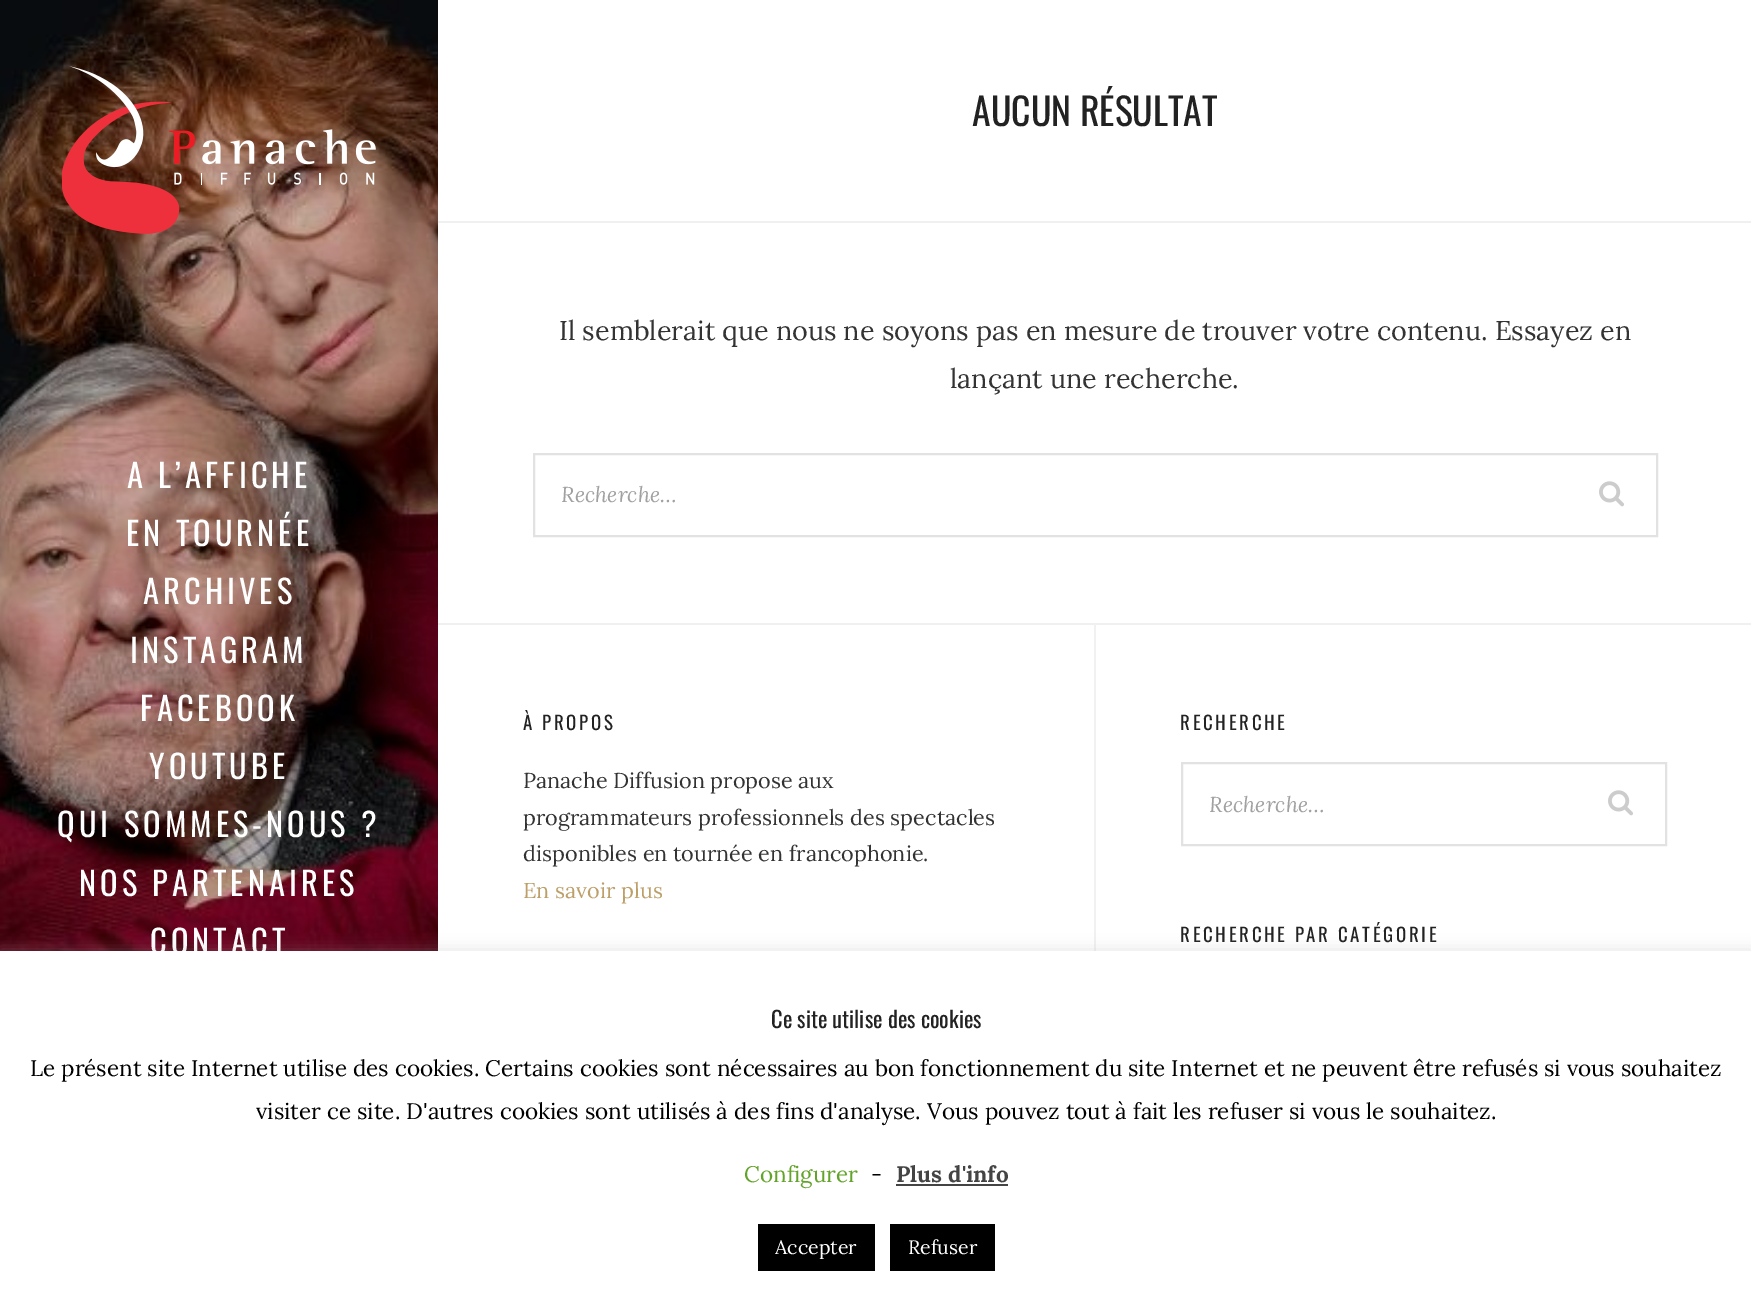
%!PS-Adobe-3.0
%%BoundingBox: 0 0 1751 1295
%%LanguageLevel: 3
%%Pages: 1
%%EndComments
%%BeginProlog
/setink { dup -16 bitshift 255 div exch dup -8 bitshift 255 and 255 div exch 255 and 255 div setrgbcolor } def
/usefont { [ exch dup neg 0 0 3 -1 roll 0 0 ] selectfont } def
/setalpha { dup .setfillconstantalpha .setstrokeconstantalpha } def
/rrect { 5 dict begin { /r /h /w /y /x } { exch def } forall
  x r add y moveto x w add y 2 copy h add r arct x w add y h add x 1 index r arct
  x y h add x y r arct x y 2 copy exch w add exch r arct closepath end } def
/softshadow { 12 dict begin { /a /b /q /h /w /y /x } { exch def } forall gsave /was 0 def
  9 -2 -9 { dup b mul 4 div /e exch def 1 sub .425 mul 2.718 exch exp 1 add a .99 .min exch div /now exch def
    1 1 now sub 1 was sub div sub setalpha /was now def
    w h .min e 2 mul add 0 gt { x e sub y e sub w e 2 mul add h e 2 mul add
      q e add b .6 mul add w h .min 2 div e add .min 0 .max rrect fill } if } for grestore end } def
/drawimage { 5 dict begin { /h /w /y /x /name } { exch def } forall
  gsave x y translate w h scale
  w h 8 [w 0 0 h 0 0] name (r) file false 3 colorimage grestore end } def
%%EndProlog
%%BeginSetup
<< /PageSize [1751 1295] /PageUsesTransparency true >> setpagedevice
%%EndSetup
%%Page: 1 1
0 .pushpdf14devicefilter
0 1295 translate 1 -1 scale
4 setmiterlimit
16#FFFFFF setink
0 0 1751 1295 rectfill
(img1.raw) 0 0 438 951 drawimage
(img2.raw) 62 66 314 168 drawimage
/Oswald-Regular 32.5 usefont
127 488 moveto 4 0 (A L’AFFICHE) ashow
126 546 moveto 4 0 (EN TOURNÉE) ashow
143 604 moveto 4 0 (ARCHIVES) ashow
130 663 moveto 4 0 (INSTAGRAM) ashow
140 721 moveto 4 0 (FACEBOOK) ashow
149 779 moveto 4 0 (YOUTUBE) ashow
57 837 moveto 4 0 (QUI SOMMES-NOUS ?) ashow
79 896 moveto 4 0 (NOS PARTENAIRES) ashow
150 954 moveto 4 0 (CONTACT) ashow
16#F0F0F0 setink
438 623 1313 2 rectfill
438 221 1313 2 rectfill
/Oswald-Regular 37.75 usefont
16#222222 setink
972 126 moveto (AUCUN RÉSULTAT) show
/Lora-Regular 27 usefont
16#333333 setink
559 340 moveto (Il semblerait que nous ne soyons pas en mesure de trouver votre contenu. Essayez en) show
950 388 moveto (lançant une recherche.) show
16#E2E2E2 setink
2 setlinewidth
534 454 1123 82 rectstroke
/Lora-Italic 21.6 usefont
16#A1A1A1 setink
561 502 moveto (Recherche…) show
(img3.raw) 1599 481 25 26 drawimage
16#F1F1F1 setink
1094 624 2 327 rectfill
/Oswald-Regular 18.9 usefont
16#222222 setink
523 730 moveto 2.7 0 (À PROPOS) ashow
/Lora-Regular 21.6 usefont
16#333333 setink
[
    [(Panache Diffusion propose aux) 523 788]
    [(programmateurs professionnels des spectacles) 523 825]
    [(disponibles en tournée en francophonie.) 523 861]
] { aload pop moveto show } forall
16#BD9F69 setink
523 898 moveto (En savoir plus) show
/Oswald-Regular 18.9 usefont
16#222222 setink
1180 730 moveto 2.7 0 (RECHERCHE) ashow
16#E2E2E2 setink
1182 763 484 82 rectstroke
/Lora-Italic 21.6 usefont
16#A1A1A1 setink
1209 812 moveto (Recherche…) show
(img3.raw) 1608 790 25 26 drawimage
/Oswald-Regular 18.9 usefont
16#222222 setink
1180 942 moveto 2.7 0 (RECHERCHE PAR CATÉGORIE) ashow
16#ACABAB setink
0 950 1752 345 0 7.5 0.3 softshadow
16#FFFFFF setink
0 951 1751 344 rectfill
/Oswald-Regular 22.5 usefont
16#222222 setink
771 1028 moveto (Ce site utilise des cookies) show
/Lora-Regular 22.5 usefont
16#000000 setink
30 1076 moveto (Le présent site Internet utilise des cookies. Certains cookies sont nécessaires au bon fonctionnement du site Internet et ne peuvent être refusés si vous souhaitez) show
256 1119 moveto (visiter ce site. D'autres cookies sont utilisés à des fins d'analyse. Vous pouvez tout à fait les refuser si vous le souhaitez.) show
16#62A329 setink
744 1182 moveto (Configurer) show
16#000000 setink
871 1182 moveto (-) show
/Lora-Bold 22.5 usefont
16#444444 setink
896 1182 moveto (Plus d'info) show
896 1184 112 2 rectfill
16#000000 setink
758 1224 117 47 rectfill
/Lora-Regular 19.5 usefont
16#FFFFFF setink
775 1254 moveto (Accepter) show
16#000000 setink
890 1224 105 47 rectfill
16#FFFFFF setink
908 1254 moveto (Refuser) show
.poppdf14devicefilter showpage
%%EOF
